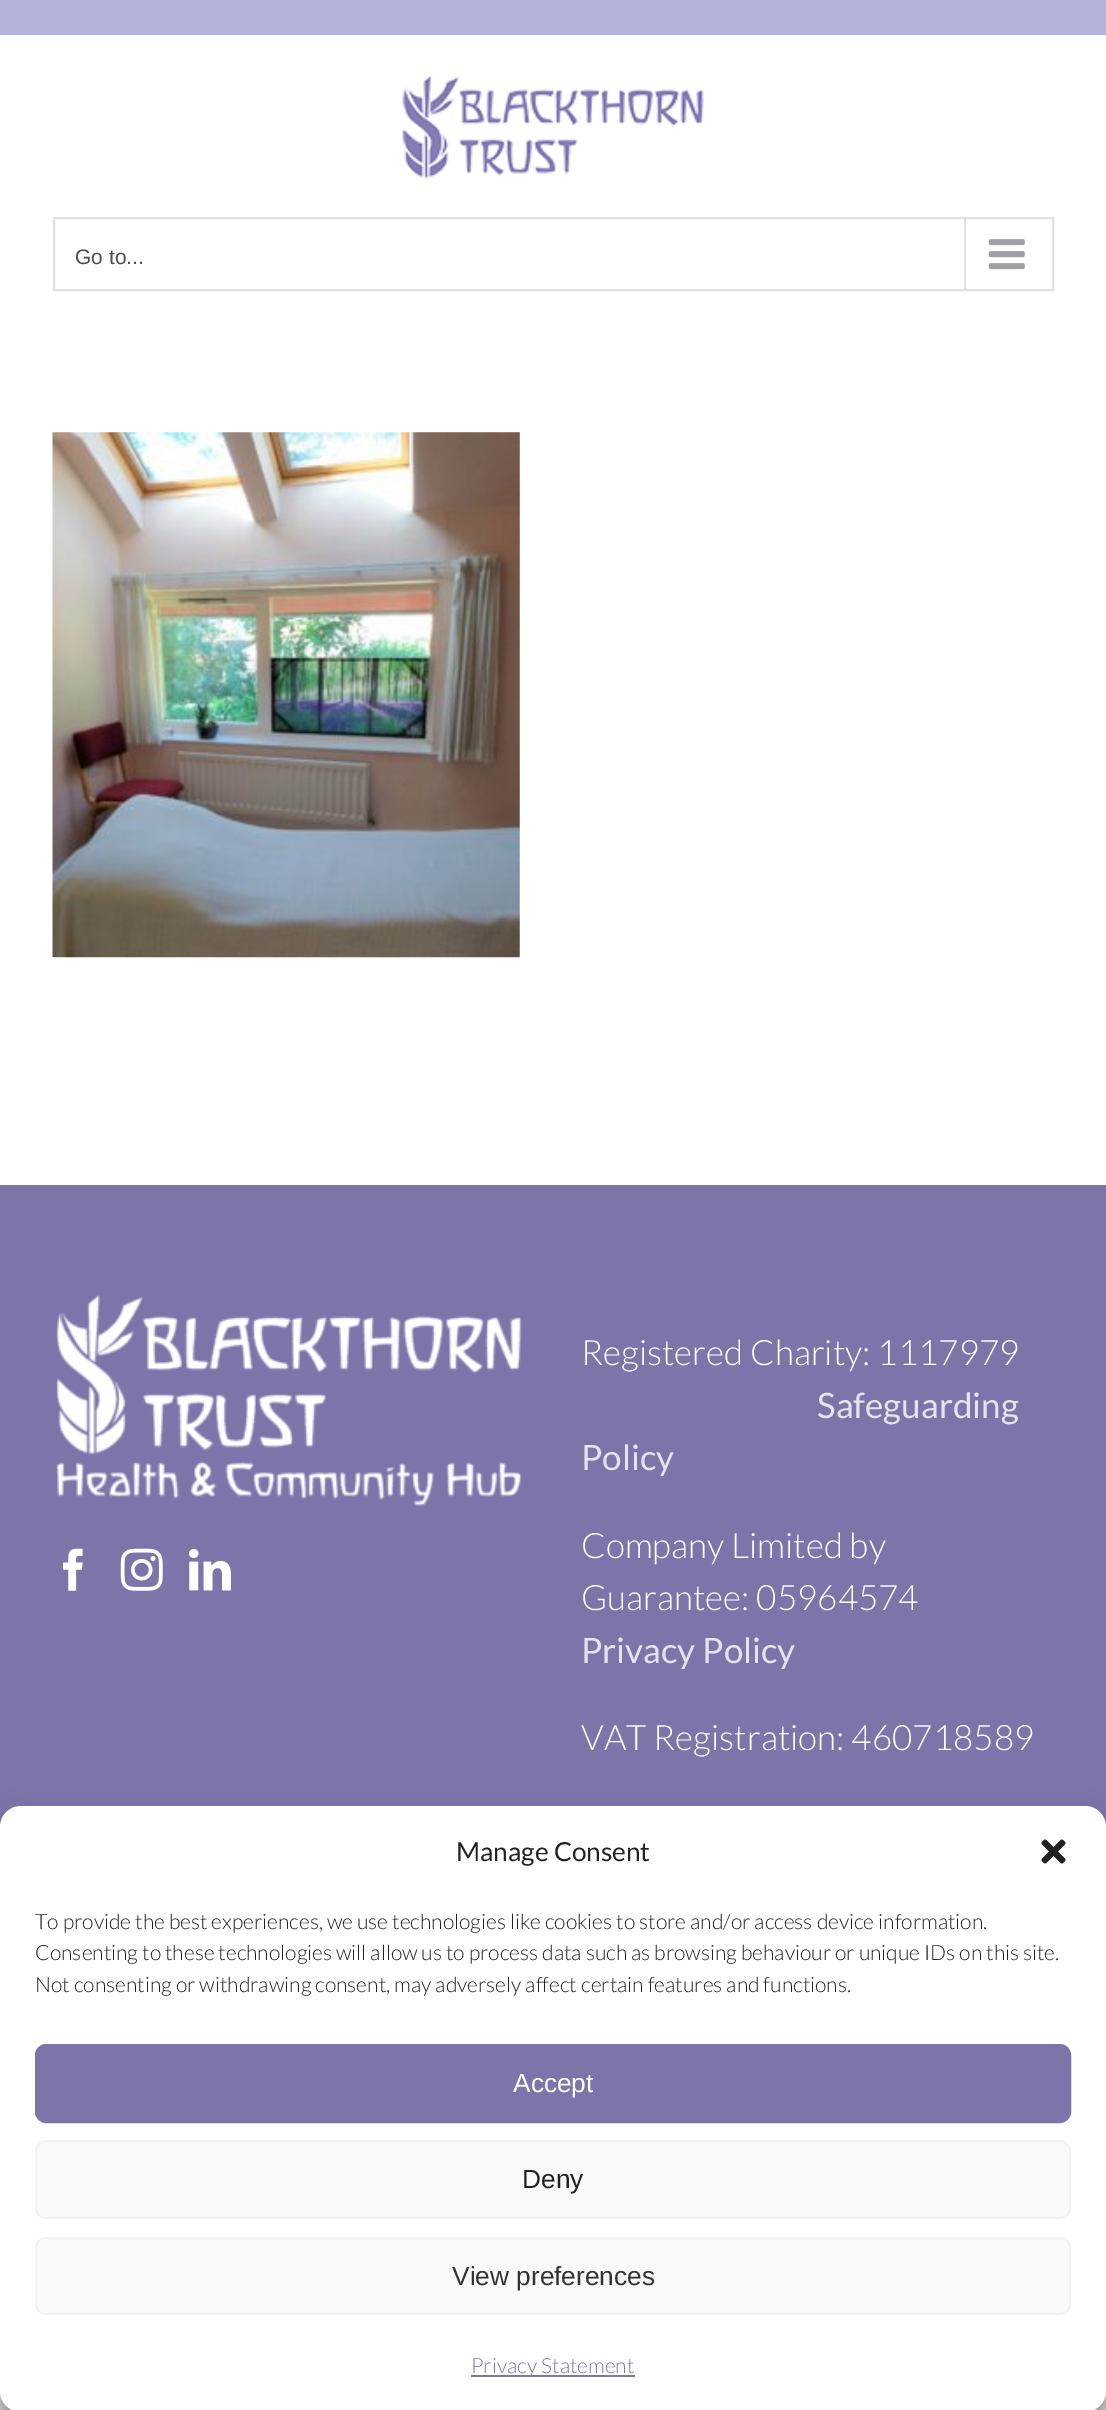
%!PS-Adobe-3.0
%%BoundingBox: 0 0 1106 2410
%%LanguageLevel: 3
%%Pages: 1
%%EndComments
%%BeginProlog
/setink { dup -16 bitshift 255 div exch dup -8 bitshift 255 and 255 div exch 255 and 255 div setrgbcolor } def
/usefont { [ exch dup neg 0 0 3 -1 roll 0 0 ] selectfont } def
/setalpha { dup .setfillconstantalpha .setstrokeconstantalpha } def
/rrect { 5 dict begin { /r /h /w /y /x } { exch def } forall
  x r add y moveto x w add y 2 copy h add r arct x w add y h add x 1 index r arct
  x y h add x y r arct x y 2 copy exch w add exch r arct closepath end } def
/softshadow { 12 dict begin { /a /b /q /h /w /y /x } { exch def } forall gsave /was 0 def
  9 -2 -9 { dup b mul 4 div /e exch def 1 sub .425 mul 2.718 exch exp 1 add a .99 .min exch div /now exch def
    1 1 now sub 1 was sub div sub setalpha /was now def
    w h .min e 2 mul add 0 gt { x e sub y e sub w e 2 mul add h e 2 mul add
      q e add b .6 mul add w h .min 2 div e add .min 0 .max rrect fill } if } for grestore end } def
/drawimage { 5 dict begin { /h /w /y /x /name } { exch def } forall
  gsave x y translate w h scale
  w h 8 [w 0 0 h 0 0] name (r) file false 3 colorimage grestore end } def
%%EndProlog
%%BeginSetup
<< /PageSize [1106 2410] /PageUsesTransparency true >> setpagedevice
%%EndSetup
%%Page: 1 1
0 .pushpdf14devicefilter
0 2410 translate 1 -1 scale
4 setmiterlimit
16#E2E2E2 setink
0 0 1106 2410 rectfill
16#FFFFFF setink
0 35 1106 1150 rectfill
16#B4B4DB setink
0 0 1106 35 rectfill
(img1.raw) 402 75 302 104 drawimage
16#E2E2E2 setink
2 setlinewidth
54 218 999 72 rectstroke
/LiberationSans-Regular 21 usefont
16#4A4E57 setink
75 264 moveto (Go to...) show
16#E2E2E2 setink
964 219 2 70 rectfill
(img2.raw) 988 239 37 31 drawimage
(img3.raw) 52 432 468 526 drawimage
16#7D74A9 setink
0 1185 1106 642 rectfill
(img4.raw) 56 1294 466 212 drawimage
(img5.raw) 63 1548 20 43 drawimage
(img6.raw) 120 1548 43 43 drawimage
(img7.raw) 189 1549 42 42 drawimage
/Lato-Light 35 usefont
16#FFFFFF setink
581 1365 moveto (Registered Charity: 1117979) show
/Lato-Regular 35 usefont
16#E5E3EE setink
817 1418 moveto (Safeguarding) show
581 1470 moveto (Policy) show
/Lato-Light 35 usefont
16#FFFFFF setink
581 1558 moveto (Company Limited by) show
581 1610 moveto (Guarantee: 05964574) show
/Lato-Regular 35 usefont
16#E5E3EE setink
581 1663 moveto (Privacy Policy) show
/Lato-Light 35 usefont
16#FFFFFF setink
581 1750 moveto (VAT Registration: 460718589) show
16#000000 setink
0 1817 1106 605 21 5 0.23 softshadow
0 1824 1106 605 21 17.5 0.19 softshadow
16#FFFFFF setink
0 1806 1106 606 21 rrect fill
/Lato-Regular 26.25 usefont
16#222222 setink
456 1861 moveto (Manage Consent) show
(img8.raw) 1041 1839 25 25 drawimage
/Lato-Light 21 usefont
[
    [(To provide the best experiences, we use technologies like cookies to store and/or access device information.) 35 1929]
    [(Consenting to these technologies will allow us to process data such as browsing behaviour or unique IDs on this site.) 35 1960]
    [(Not consenting or withdrawing consent, may adversely affect certain features and functions.) 35 1992]
] { aload pop moveto show } forall
16#7D74A9 setink
36 2045 1034 77 10 rrect gsave fill grestore
stroke
/LiberationSans-Regular 26.25 usefont
16#FFFFFF setink
513 2092 moveto (Accept) show
16#F9F9F9 setink
36 2141 1034 77 10 rrect gsave fill grestore
16#F2F2F2 setink
stroke
16#222222 setink
522 2188 moveto (Deny) show
16#F9F9F9 setink
36 2238 1034 76 10 rrect gsave fill grestore
16#F2F2F2 setink
stroke
16#333333 setink
452 2285 moveto (View preferences) show
16#7D74A9 setink
471 2375 164 2 rectfill
/Lato-Light 21 usefont
471 2373 moveto (Privacy Statement) show
.poppdf14devicefilter showpage
%%EOF
